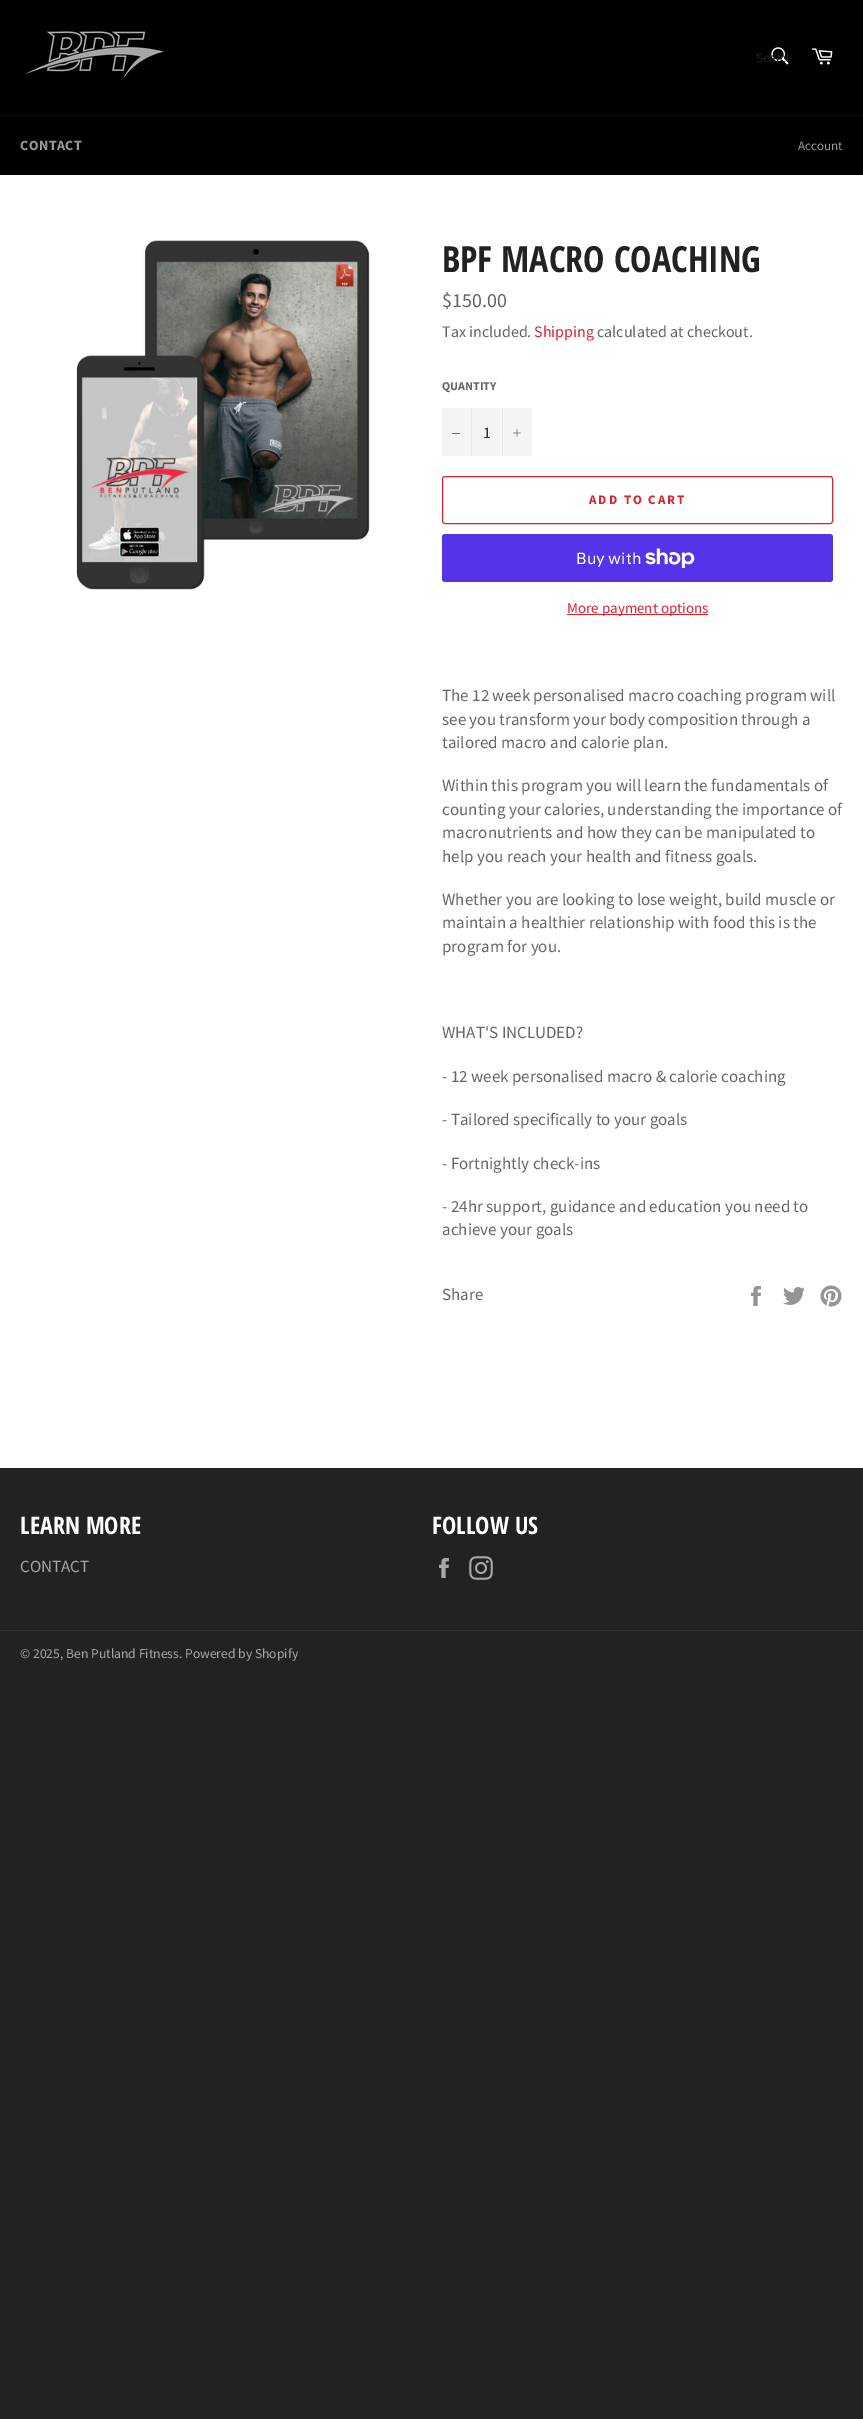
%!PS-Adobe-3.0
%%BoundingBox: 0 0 863 2419
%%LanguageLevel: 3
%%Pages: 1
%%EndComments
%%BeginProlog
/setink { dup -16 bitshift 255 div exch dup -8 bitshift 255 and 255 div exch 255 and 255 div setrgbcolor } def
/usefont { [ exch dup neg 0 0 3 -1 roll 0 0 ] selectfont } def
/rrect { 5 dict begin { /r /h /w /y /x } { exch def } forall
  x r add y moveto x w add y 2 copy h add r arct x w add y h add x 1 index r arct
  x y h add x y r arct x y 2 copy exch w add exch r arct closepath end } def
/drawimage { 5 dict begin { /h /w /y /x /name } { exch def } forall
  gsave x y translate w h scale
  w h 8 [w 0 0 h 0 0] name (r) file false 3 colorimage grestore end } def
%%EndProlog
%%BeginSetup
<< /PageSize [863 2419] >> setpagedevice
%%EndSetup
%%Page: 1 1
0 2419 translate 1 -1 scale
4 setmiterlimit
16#222222 setink
0 0 863 2419 rectfill
16#FFFFFF setink
0 175 863 1293 rectfill
16#000000 setink
0 0 863 115 rectfill
(img1.raw) 25 31 139 48 drawimage
(img2.raw) 771 47 18 18 drawimage
gsave
756 49 32 17 rectclip
/SourceSansPro-Regular 13 usefont
16#222222 setink
756 62 moveto (Search) show
grestore
(img3.raw) 811 48 22 17 drawimage
0 116 863 59 rectfill
16#0D0D0D setink
0 115 863 1 rectfill
/SourceSansPro-Bold 14 usefont
16#999999 setink
20 150 moveto 0.5 0 (CONTACT) ashow
/SourceSansPro-Regular 13 usefont
798 150 moveto (Account) show
(img4.raw) 76 240 294 350 drawimage
/OpenSansCondensed-Bold 36 usefont
16#222222 setink
442 272 moveto (BPF MACRO COACHING) show
/SourceSansPro-Regular 20 usefont
16#666666 setink
442 307 moveto ($150.00) show
/SourceSansPro-Regular 16 usefont
442 337 moveto (Tax included.) show
16#D8232F setink
534 337 moveto (Shipping) show
16#666666 setink
597 337 moveto (calculated at checkout.) show
/SourceSansPro-Bold 12 usefont
442 390 moveto (QUANTITY) show
[
    [442 408 90 48 16#F4F4F4]
    [471 408 1 48 16#E7E7E7]
    [452 433 8 1 16#666666]
] { aload pop setink rectfill } forall
/SourceSansPro-Regular 16 usefont
16#333333 setink
483 438 moveto (1) show
16#E7E7E7 setink
502 408 1 48 rectfill
(img5.raw) 513 429 8 8 drawimage
16#D8232F setink
442.5 476.5 390 47 2.5 rrect stroke
/SourceSansPro-Bold 13 usefont
589 504 moveto 2 0 (ADD TO CART) ashow
16#5433EB setink
442 534 391 48 3 rrect fill
/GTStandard-Regular 16 usefont
16#FFFFFF setink
576 564 moveto (Buy with) show
(img6.raw) 645 548 50 20 drawimage
16#D8232F setink
567 614 141 1 rectfill
/SourceSansPro-Regular 15 usefont
567 613 moveto (More payment options) show
/SourceSansPro-Regular 17 usefont
16#666666 setink
[
    [(The 12 week personalised macro coaching program will) 442 701]
    [(see you transform your body composition through a) 442 725]
    [(tailored macro and calorie plan.) 442 748]
    [(Within this program you will learn the fundamentals of) 442 791]
    [(counting your calories, understanding the importance of) 442 815]
    [(macronutrients and how they can be manipulated to) 442 838]
    [(help you reach your health and fitness goals.) 442 862]
    [(Whether you are looking to lose weight, build muscle or) 442 905]
    [(maintain a healthier relationship with food this is the) 442 928]
    [(program for you.) 442 952]
    [(WHAT'S INCLUDED?) 442 1038]
    [(- 12 week personalised macro & calorie coaching) 442 1082]
    [(- Tailored specifically to your goals) 442 1125]
    [(- Fortnightly check-ins) 442 1169]
    [(- 24hr support, guidance and education you need to) 442 1212]
    [(achieve your goals) 442 1235]
    [(Share) 442 1300]
] { aload pop moveto show } forall
(img7.raw) 751 1286 10 20 drawimage
(img8.raw) 783 1287 22 18 drawimage
(img9.raw) 820 1285 22 22 drawimage
/OpenSansCondensed-Bold 24 usefont
16#FFFFFF setink
20 1534 moveto (LEARN MORE) show
/SourceSansPro-Regular 17 usefont
16#A7A7A7 setink
20 1572 moveto (CONTACT) show
/OpenSansCondensed-Bold 24 usefont
16#FFFFFF setink
432 1534 moveto (FOLLOW US) show
(img10.raw) 439 1558 10 20 drawimage
(img11.raw) 469 1556 24 24 drawimage
16#2F2F2F setink
0 1630 863 1 rectfill
/SourceSansPro-Regular 13.6 usefont
16#A7A7A7 setink
20 1658 moveto (© 2025, Ben Putland Fitness. Powered by Shopify) show
showpage
%%EOF
